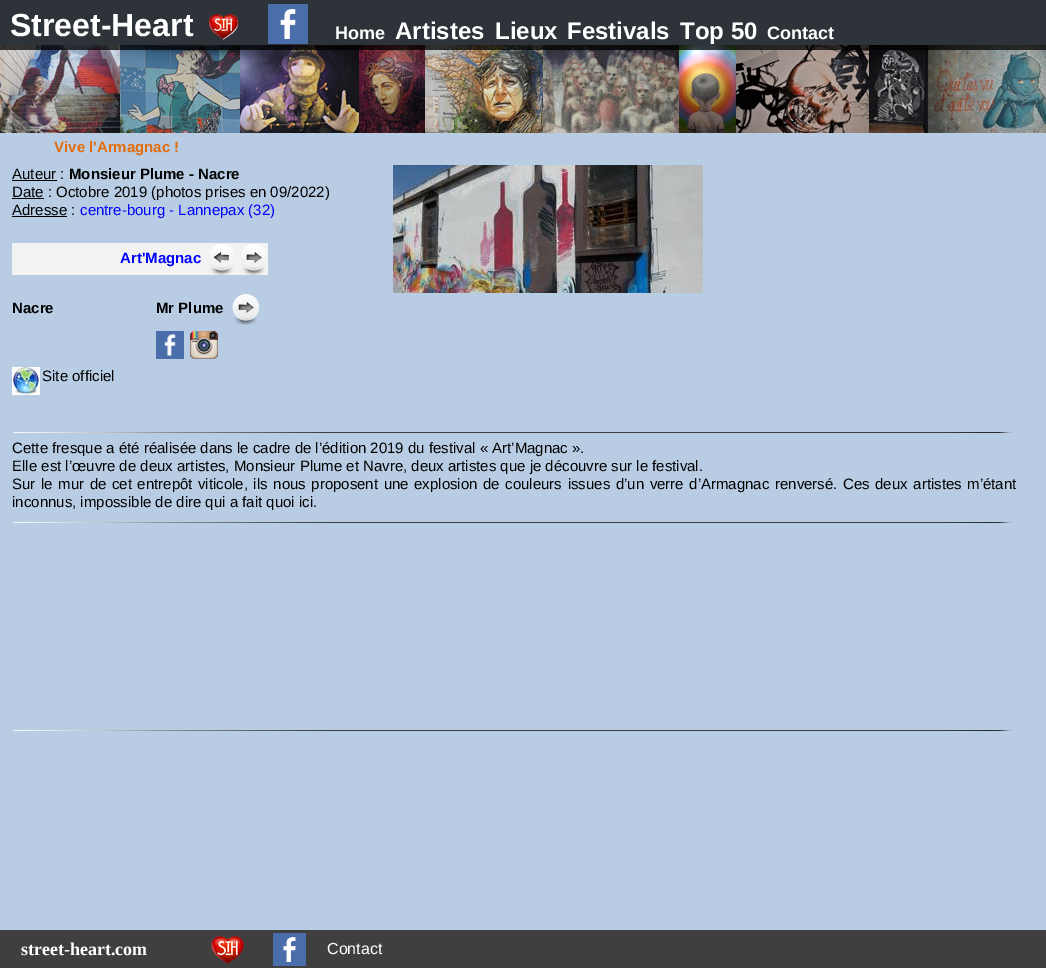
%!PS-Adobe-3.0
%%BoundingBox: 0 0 1046 968
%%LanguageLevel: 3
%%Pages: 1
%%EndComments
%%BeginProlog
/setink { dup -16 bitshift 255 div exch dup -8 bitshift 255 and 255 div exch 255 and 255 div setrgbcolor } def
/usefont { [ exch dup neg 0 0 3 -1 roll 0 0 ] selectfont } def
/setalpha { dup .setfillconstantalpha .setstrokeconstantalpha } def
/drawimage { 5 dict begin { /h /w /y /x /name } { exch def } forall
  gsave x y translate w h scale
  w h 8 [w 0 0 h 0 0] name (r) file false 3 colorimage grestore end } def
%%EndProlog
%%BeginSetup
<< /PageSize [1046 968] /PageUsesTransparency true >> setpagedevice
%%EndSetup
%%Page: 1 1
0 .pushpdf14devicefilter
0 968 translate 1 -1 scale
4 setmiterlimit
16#B8CCE4 setink
0 0 1046 968 rectfill
(img3.raw) 0 45 1046 88 drawimage
0.75 setalpha
16#000000 setink
0 0 1046 50 rectfill
/LiberationSans-Bold 32 usefont
1 setalpha
16#FFFFFF setink
10 36 moveto (Street-Heart) show
(img1.raw) 209 14 29 26 drawimage
(img2.raw) 268 4 40 40 drawimage
/LiberationSans-Bold 18 usefont
335 39 moveto (Home) show
/LiberationSans-Bold 24 usefont
[
    [(Artistes) 395 39]
    [(Lieux) 495 39]
    [(Festivals) 567 39]
    [(Top 50) 680 39]
] { aload pop moveto show } forall
/LiberationSans-Bold 18 usefont
767 39 moveto (Contact) show
/LiberationSans-Bold 15 usefont
16#E36C09 setink
54 152 moveto (Vive l'Armagnac !) show
/LiberationSans-Regular 15 usefont
16#000000 setink
12 179 moveto (Auteur :) show
12 180 45 1 rectfill
/LiberationSans-Bold 15 usefont
69 179 moveto (Monsieur Plume - Nacre) show
12 198 32 1 rectfill
/LiberationSans-Regular 15 usefont
12 197 moveto (Date : Octobre 2019 \(photos prises en 09/2022\)) show
12 215 moveto (Adresse :) show
12 216 55 1 rectfill
16#0000FF setink
80 215 moveto (centre-bourg - Lannepax \(32\)) show
16#F2F2F2 setink
12 243 256 32 rectfill
/LiberationSans-Bold 15 usefont
16#0000FF setink
120 263 moveto (Art'Magnac) show
(img4.raw) 209 244 26 31 drawimage
(img5.raw) 241 244 26 31 drawimage
(img6.raw) 393 165 310 128 drawimage
16#000000 setink
12 313 moveto (Nacre) show
(img7.raw) 12 367 28 28 drawimage
/LiberationSans-Regular 15 usefont
42 381 moveto (Site officiel) show
/LiberationSans-Bold 15 usefont
156 313 moveto (Mr Plume) show
(img8.raw) 232 294 28 31 drawimage
(img9.raw) 156 331 28 28 drawimage
(img10.raw) 190 331 28 28 drawimage
(img11.raw) 12 432 319 1 drawimage
16#3C3A3C setink
331 432 618 1 rectfill
(img12.raw) 949 432 64 1 drawimage
/LiberationSans-Regular 15 usefont
16#000000 setink
12 453 moveto (Cette fresque a été réalisée dans le cadre de l’édition 2019 du festival « Art’Magnac ».) show
12 471 moveto (Elle est l’œuvre de deux artistes, Monsieur Plume et Navre, deux artistes que je découvre sur le festival.) show
12 489 moveto 1.4 0 32 (Sur le mur de cet entrepôt viticole, ils nous proposent une explosion de couleurs issues d’un verre d’Armagnac renversé. Ces deux artistes m’étant) widthshow
12 507 moveto (inconnus, impossible de dire qui a fait quoi ici.) show
(img11.raw) 12 522 319 1 drawimage
16#3C3A3C setink
331 522 618 1 rectfill
(img12.raw) 949 522 64 1 drawimage
(img11.raw) 12 730 319 1 drawimage
331 730 618 1 rectfill
(img12.raw) 949 730 64 1 drawimage
16#3F3F3F setink
0 930 1046 38 rectfill
/LiberationSerif-Bold 18 usefont
16#FFFFFF setink
21 955 moveto (street-heart.com) show
(img13.raw) 211 936 33 28 drawimage
(img14.raw) 273 933 33 33 drawimage
/LiberationSans-Regular 16 usefont
327 954 moveto (Contact) show
.poppdf14devicefilter showpage
%%EOF
